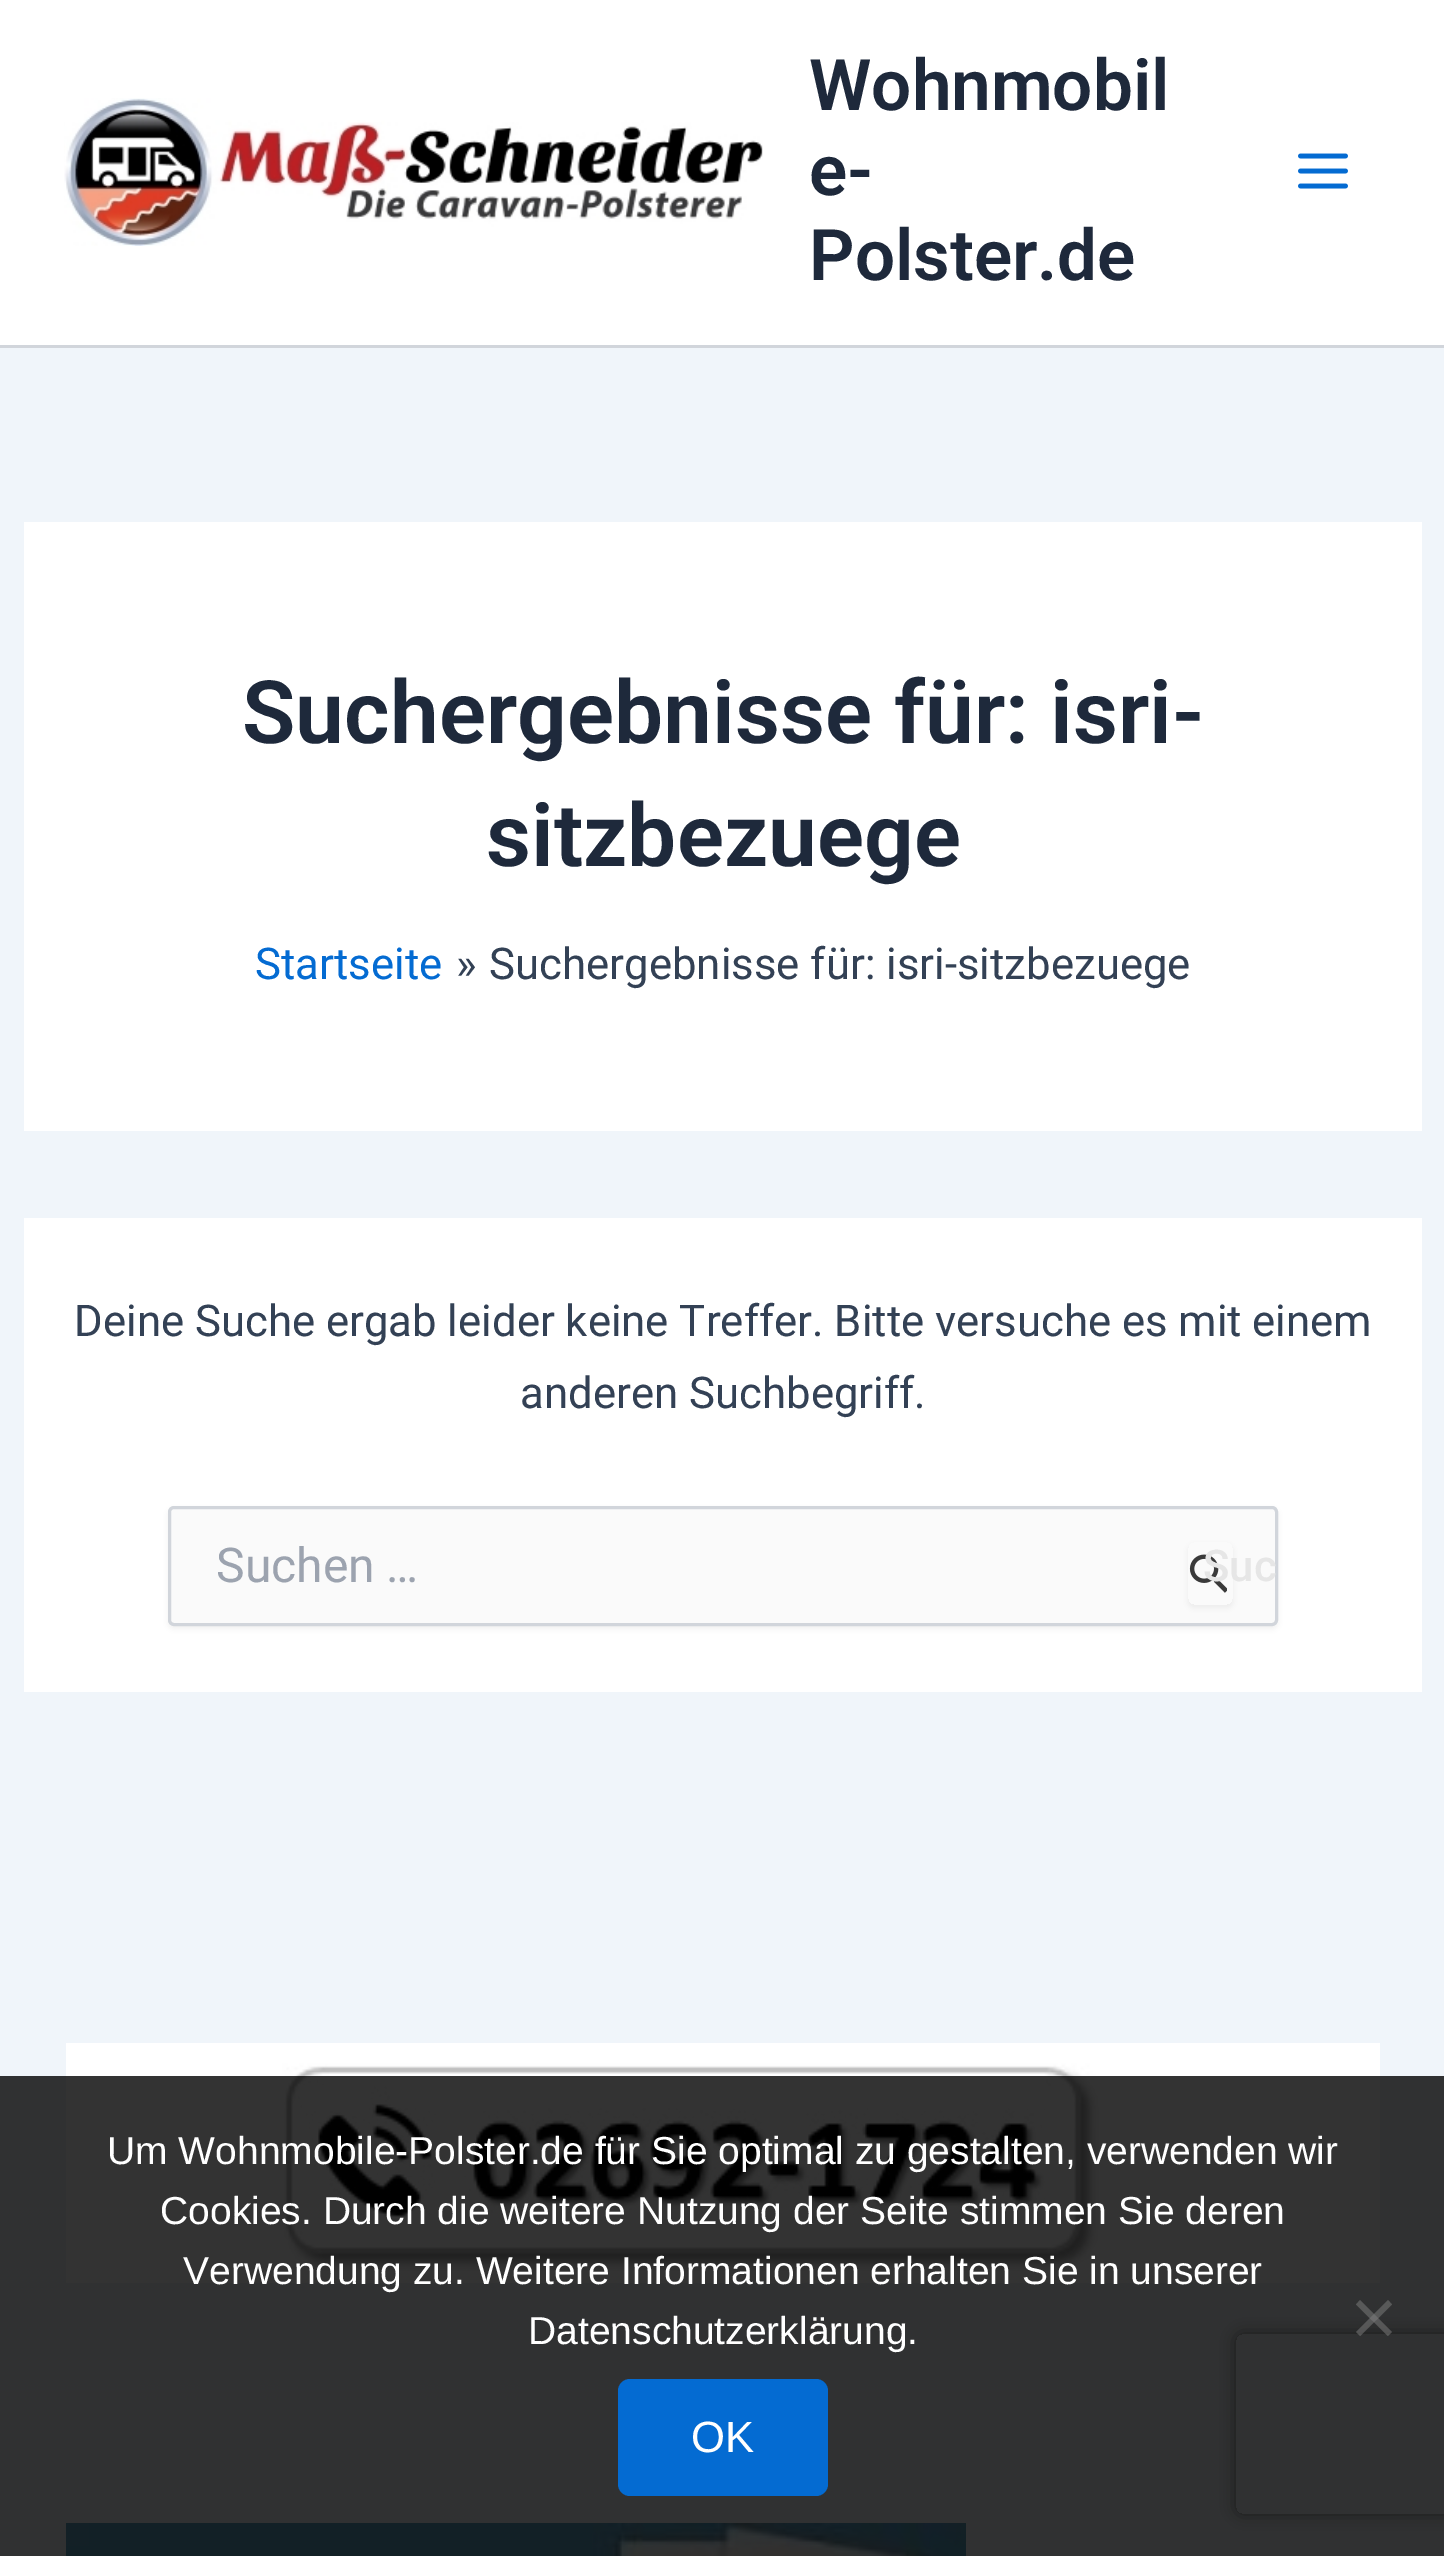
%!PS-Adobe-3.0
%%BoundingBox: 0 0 1444 2556
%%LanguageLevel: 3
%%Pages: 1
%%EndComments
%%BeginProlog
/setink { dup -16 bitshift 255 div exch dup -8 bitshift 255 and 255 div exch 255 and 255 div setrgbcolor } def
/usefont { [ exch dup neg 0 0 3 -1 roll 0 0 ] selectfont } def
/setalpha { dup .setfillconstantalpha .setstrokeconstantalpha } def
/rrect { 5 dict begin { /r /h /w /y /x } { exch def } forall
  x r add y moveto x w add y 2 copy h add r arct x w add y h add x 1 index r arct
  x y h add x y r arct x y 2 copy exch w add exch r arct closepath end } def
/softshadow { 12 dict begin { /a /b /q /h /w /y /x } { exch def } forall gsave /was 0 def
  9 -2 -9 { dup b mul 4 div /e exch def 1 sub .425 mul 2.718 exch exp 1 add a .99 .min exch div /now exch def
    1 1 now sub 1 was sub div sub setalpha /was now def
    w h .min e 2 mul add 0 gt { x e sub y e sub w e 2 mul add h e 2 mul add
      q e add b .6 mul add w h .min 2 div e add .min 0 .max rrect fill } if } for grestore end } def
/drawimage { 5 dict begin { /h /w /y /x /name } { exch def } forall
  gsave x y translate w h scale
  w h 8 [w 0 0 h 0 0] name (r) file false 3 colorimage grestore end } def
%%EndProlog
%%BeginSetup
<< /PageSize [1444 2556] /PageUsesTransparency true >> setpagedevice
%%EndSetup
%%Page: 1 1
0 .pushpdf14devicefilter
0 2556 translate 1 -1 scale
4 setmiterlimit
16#F0F5FA setink
0 0 1444 2556 rectfill
16#FFFFFF setink
0 0 1444 345 rectfill
16#D1D5DB setink
0 345 1444 3 rectfill
(img1.raw) 64 98 699 148 drawimage
/Roboto-SemiBold 71 usefont
16#1E293B setink
[
    [(Wohnmobil) 809 110]
    [(e-) 809 195]
    [(Polster.de) 809 280]
] { aload pop moveto show } forall
(img2.raw) 1298 153 50 36 drawimage
16#FFFFFF setink
24 522 1398 609 rectfill
/Roboto-SemiBold 87.5 usefont
16#1E293B setink
[
    [(Suchergebnisse für:) 242 743]
    [(isri-) 1050 743]
    [(sitzbezuege) 486 866]
] { aload pop moveto show } forall
/Roboto-Regular 43.75 usefont
16#046BD2 setink
255 979 moveto (Startseite) show
16#334155 setink
456 979 moveto (») show
489 979 moveto (Suchergebnisse für: isri-sitzbezuege) show
16#FFFFFF setink
24 1218 1398 474 rectfill
16#334155 setink
74 1336 moveto -0.1 0 32 (Deine Suche ergab leider keine Treffer. Bitte versuche es mit einem) widthshow
520 1408 moveto (anderen Suchbegriff.) show
16#000000 setink
168 1509 1110 120 6 3 0.05 softshadow
16#FAFAFA setink
169.5 1507.5 1107 117 4.5 rrect gsave fill grestore
16#D1D5DB setink
3 setlinewidth
stroke
/Roboto-Regular 48 usefont
16#9CA3AF setink
216 1582 moveto (Suchen …) show
gsave
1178 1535 moveto 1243 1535 lineto 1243 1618 lineto 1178 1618 lineto closepath 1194 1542 moveto 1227 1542 lineto 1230.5 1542 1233 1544.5 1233 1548 curveto 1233 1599 lineto 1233 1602.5 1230.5 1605 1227 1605 curveto 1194 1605 lineto 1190.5 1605 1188 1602.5 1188 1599 curveto 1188 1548 lineto 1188 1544.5 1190.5 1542 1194 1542 curveto closepath eoclip newpath
16#000000 setink
1188 1545 45 63 6 3 0.05 softshadow
grestore
(img3.raw) 1189 1554 38 39 drawimage
/Roboto-Medium 43.75 usefont
16#E6E6E6 setink
1203 1581 moveto (Suc) show
(img4.raw) 66 2043 1314 240 drawimage
(img5.raw) 66 2523 900 33 drawimage
gsave
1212 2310 moveto 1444 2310 lineto 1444 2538 lineto 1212 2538 lineto closepath 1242 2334 moveto 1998 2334 lineto 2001.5 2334 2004 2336.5 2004 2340 curveto 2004 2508 lineto 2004 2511.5 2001.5 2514 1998 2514 curveto 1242 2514 lineto 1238.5 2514 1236 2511.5 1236 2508 curveto 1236 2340 lineto 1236 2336.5 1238.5 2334 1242 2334 curveto closepath eoclip newpath
16#808080 setink
1236 2334 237 180 6 7.5 1 softshadow
grestore
0.8 setalpha
16#000000 setink
0 2076 1444 480 rectfill
/LiberationSans-Regular 39 usefont
1 setalpha
16#FFFFFF setink
[
    [(Um Wohnmobile-Polster.de für Sie optimal zu gestalten, verwenden wir) 107 2164]
    [(Cookies. Durch die weitere Nutzung der Seite stimmen Sie deren) 160 2224]
    [(Verwendung zu. Weitere Informationen erhalten Sie in unserer) 183 2284]
    [(Datenschutzerklärung.) 528 2344]
] { aload pop moveto show } forall
0.5 setalpha
16#808080 setink
1388 2300 moveto 1392 2304.5 lineto 1360 2336 lineto 1356 2332 lineto closepath fill
1356 2304.5 moveto 1360 2300 lineto 1392 2332 lineto 1388 2336 lineto closepath fill
1 setalpha
16#046BD2 setink
618 2379 210 117 12 rrect fill
/LiberationSans-Regular 43.75 usefont
16#FFFFFF setink
691 2452 moveto (OK) show
.poppdf14devicefilter showpage
%%EOF
